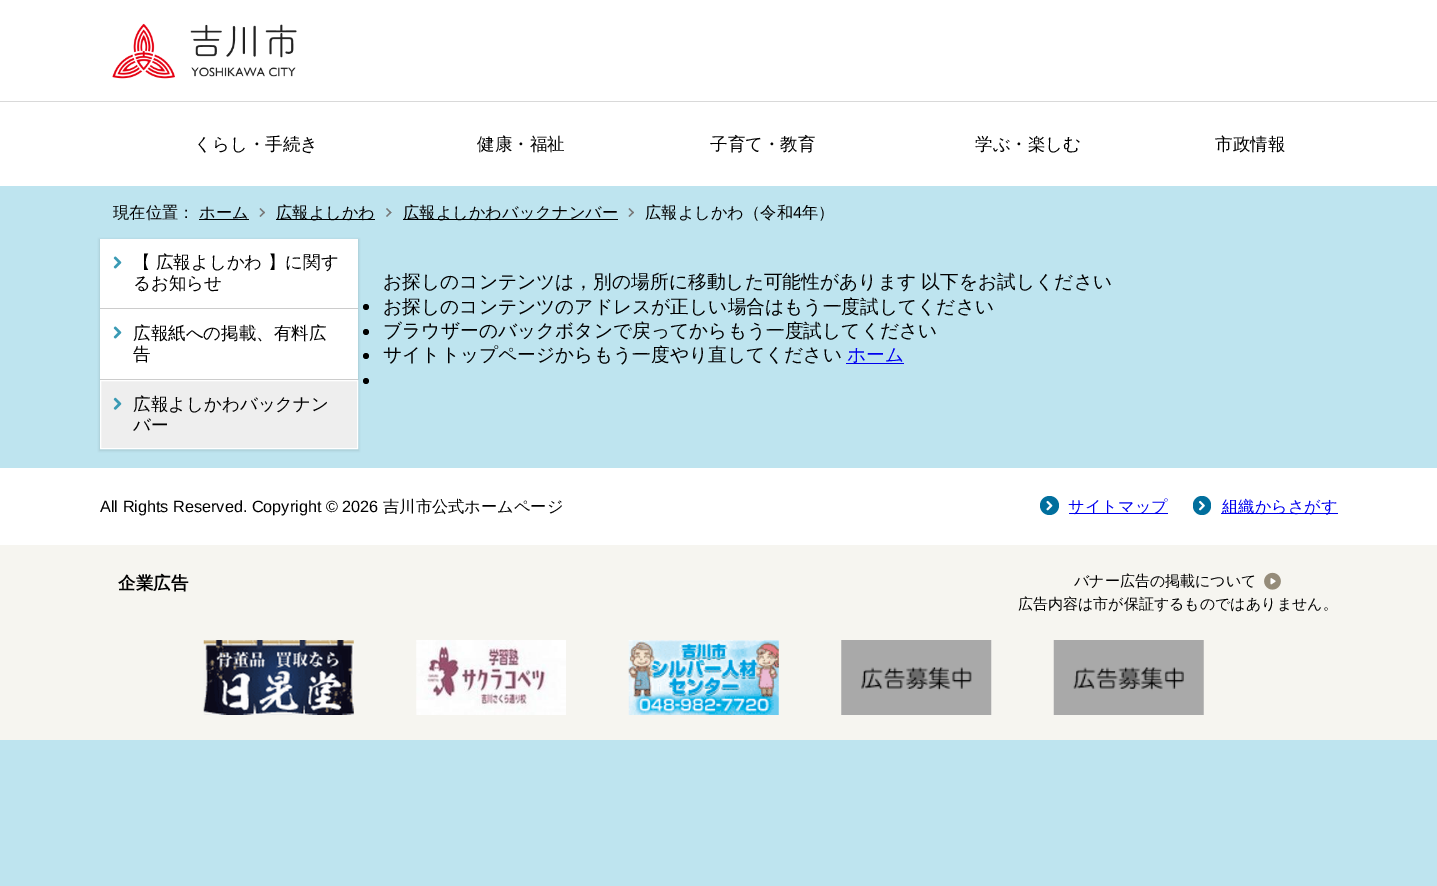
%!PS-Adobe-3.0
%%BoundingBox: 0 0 1437 886
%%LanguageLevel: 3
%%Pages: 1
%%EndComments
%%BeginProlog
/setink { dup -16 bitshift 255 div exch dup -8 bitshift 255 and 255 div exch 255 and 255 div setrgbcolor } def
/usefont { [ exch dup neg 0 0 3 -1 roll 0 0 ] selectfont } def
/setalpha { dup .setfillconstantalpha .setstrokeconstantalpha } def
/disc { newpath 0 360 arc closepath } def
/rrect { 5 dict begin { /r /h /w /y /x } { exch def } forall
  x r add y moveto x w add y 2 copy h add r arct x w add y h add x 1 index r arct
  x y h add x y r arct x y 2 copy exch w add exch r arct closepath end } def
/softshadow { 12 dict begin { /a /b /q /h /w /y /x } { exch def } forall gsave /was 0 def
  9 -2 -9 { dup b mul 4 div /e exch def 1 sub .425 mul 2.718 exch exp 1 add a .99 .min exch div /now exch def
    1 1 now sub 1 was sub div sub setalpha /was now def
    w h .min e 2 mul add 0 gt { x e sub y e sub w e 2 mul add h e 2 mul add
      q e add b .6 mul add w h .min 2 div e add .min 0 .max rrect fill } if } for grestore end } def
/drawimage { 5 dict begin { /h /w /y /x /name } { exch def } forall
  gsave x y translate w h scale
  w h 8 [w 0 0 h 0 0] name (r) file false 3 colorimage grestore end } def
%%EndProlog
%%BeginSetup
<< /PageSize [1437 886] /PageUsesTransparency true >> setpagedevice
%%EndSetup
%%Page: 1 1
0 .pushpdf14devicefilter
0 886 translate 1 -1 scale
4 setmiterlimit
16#BEE4EF setink
0 0 1437 886 rectfill
16#FFFFFF setink
0 0 1437 186 rectfill
(img1.raw) 112 23 185 56 drawimage
16#D9D9D9 setink
0 101 1437 1 rectfill
/WenQuanYiZenHei-Medium 17.5 usefont
16#000000 setink
[
    [(くらし・手続き) 194 150]
    [(健康・福祉) 477 150]
    [(子育て・教育) 710 150]
    [(学ぶ・楽しむ) 975 150]
    [(市政情報) 1215 150]
] { aload pop moveto show } forall
/WenQuanYiZenHei-Medium 16.25 usefont
113 218 moveto (現在位置：) show
199 219 50 1 rectfill
199 218 moveto (ホーム) show
16#777777 setink
260.5 208 moveto 265 212.5 lineto 264 213.5 lineto 259.5 209 lineto closepath fill
264 211.5 moveto 265 212.5 lineto 260.5 217 lineto 259.5 216 lineto closepath fill
16#000000 setink
276 219 99 1 rectfill
276 218 moveto (広報よしかわ) show
16#777777 setink
387 208 moveto 391.5 212.5 lineto 390.5 213.5 lineto 386 209 lineto closepath fill
390.5 211.5 moveto 391.5 212.5 lineto 387 217 lineto 386 216 lineto closepath fill
16#000000 setink
403 219 215 1 rectfill
403 218 moveto (広報よしかわバックナンバー) show
16#777777 setink
629.5 208 moveto 634 212.5 lineto 633 213.5 lineto 628.5 209 lineto closepath fill
633 211.5 moveto 634 212.5 lineto 629.5 217 lineto 628.5 216 lineto closepath fill
16#000000 setink
645 218 moveto (広報よしかわ（令和) show
/LiberationSans-Regular 16.25 usefont
793 218 moveto (4) show
/WenQuanYiZenHei-Medium 16.25 usefont
802 218 moveto (年）) show
99 239 260 212 0 1 0.1 softshadow
16#FFFFFF setink
100 239 258 140 rectfill
(img2.raw) 113 256 9 13 drawimage
/WenQuanYiZenHei-Medium 17.5 usefont
16#000000 setink
133 268 moveto (【 広報よしかわ 】に関す) show
133 289 moveto (るお知らせ) show
16#CCCCCC setink
100 308 258 1 rectfill
(img2.raw) 113 326 9 13 drawimage
16#000000 setink
133 339 moveto (広報紙への掲載、有料広) show
133 360 moveto (告) show
16#CCCCCC setink
100 379 258 1 rectfill
16#EEEEEE setink
100.5 380.5 moveto 357.5 380.5 lineto 357.5 448.5 lineto 100.5 448.5 lineto closepath gsave fill grestore
16#FFFFFF setink
stroke
(img3.raw) 113 397 9 13 drawimage
16#000000 setink
133 410 moveto (広報よしかわバックナン) show
133 431 moveto (バー) show
/WenQuanYiZenHei-Medium 18.75 usefont
383 288 moveto (お探しのコンテンツは，別の場所に移動した可能性があります 以下をお試しください) show
366 307 3 disc fill
383 313 moveto (お探しのコンテンツのアドレスが正しい場合はもう一度試してください) show
366 332 3 disc fill
383 337 moveto (ブラウザーのバックボタンで戻ってからもう一度試してください) show
366 356 3 disc fill
383 361 moveto (サイトトップページからもう一度やり直してください) show
16#0000EE setink
847 361 moveto (ホーム) show
846 363 58 1 rectfill
16#000000 setink
366 381 3 disc fill
16#FFFFFF setink
0 468 1437 77 rectfill
/LiberationSans-Regular 16.25 usefont
16#000000 setink
100 512 moveto (All Rights Reserved. Copyright © 2026) show
/WenQuanYiZenHei-Medium 16.25 usefont
383 512 moveto (吉川市公式ホームページ) show
16#016F9D setink
1049.5 505.5 9.5 disc fill
16#0000EE setink
1069 513 99 1 rectfill
1068 512 moveto (サイトマップ) show
(img4.raw) 1046 500 7 11 drawimage
16#016F9D setink
1193 496 18 19 9 rrect fill
16#0000EE setink
1221 513 117 1 rectfill
1222 512 moveto (組織からさがす) show
(img5.raw) 1198 500 7 11 drawimage
16#F6F5F0 setink
0 545 1437 195 rectfill
/WenQuanYiZenHei-Bold 17.5 usefont
16#000000 setink
118 589 moveto (企業広告) show
/WenQuanYiZenHei-Medium 15 usefont
1074 586 moveto (バナー広告の掲載について) show
(img7.raw) 1270 578 6 7 drawimage
(img6.raw) 1264 572 17 18 drawimage
1018 609 moveto (広告内容は市が保証するものではありません。) show
(img8.raw) 203 640 151 75 drawimage
(img9.raw) 416 640 150 75 drawimage
(img10.raw) 628 640 151 75 drawimage
(img11.raw) 841 640 151 75 drawimage
(img12.raw) 1053 640 151 75 drawimage
.poppdf14devicefilter showpage
%%EOF
